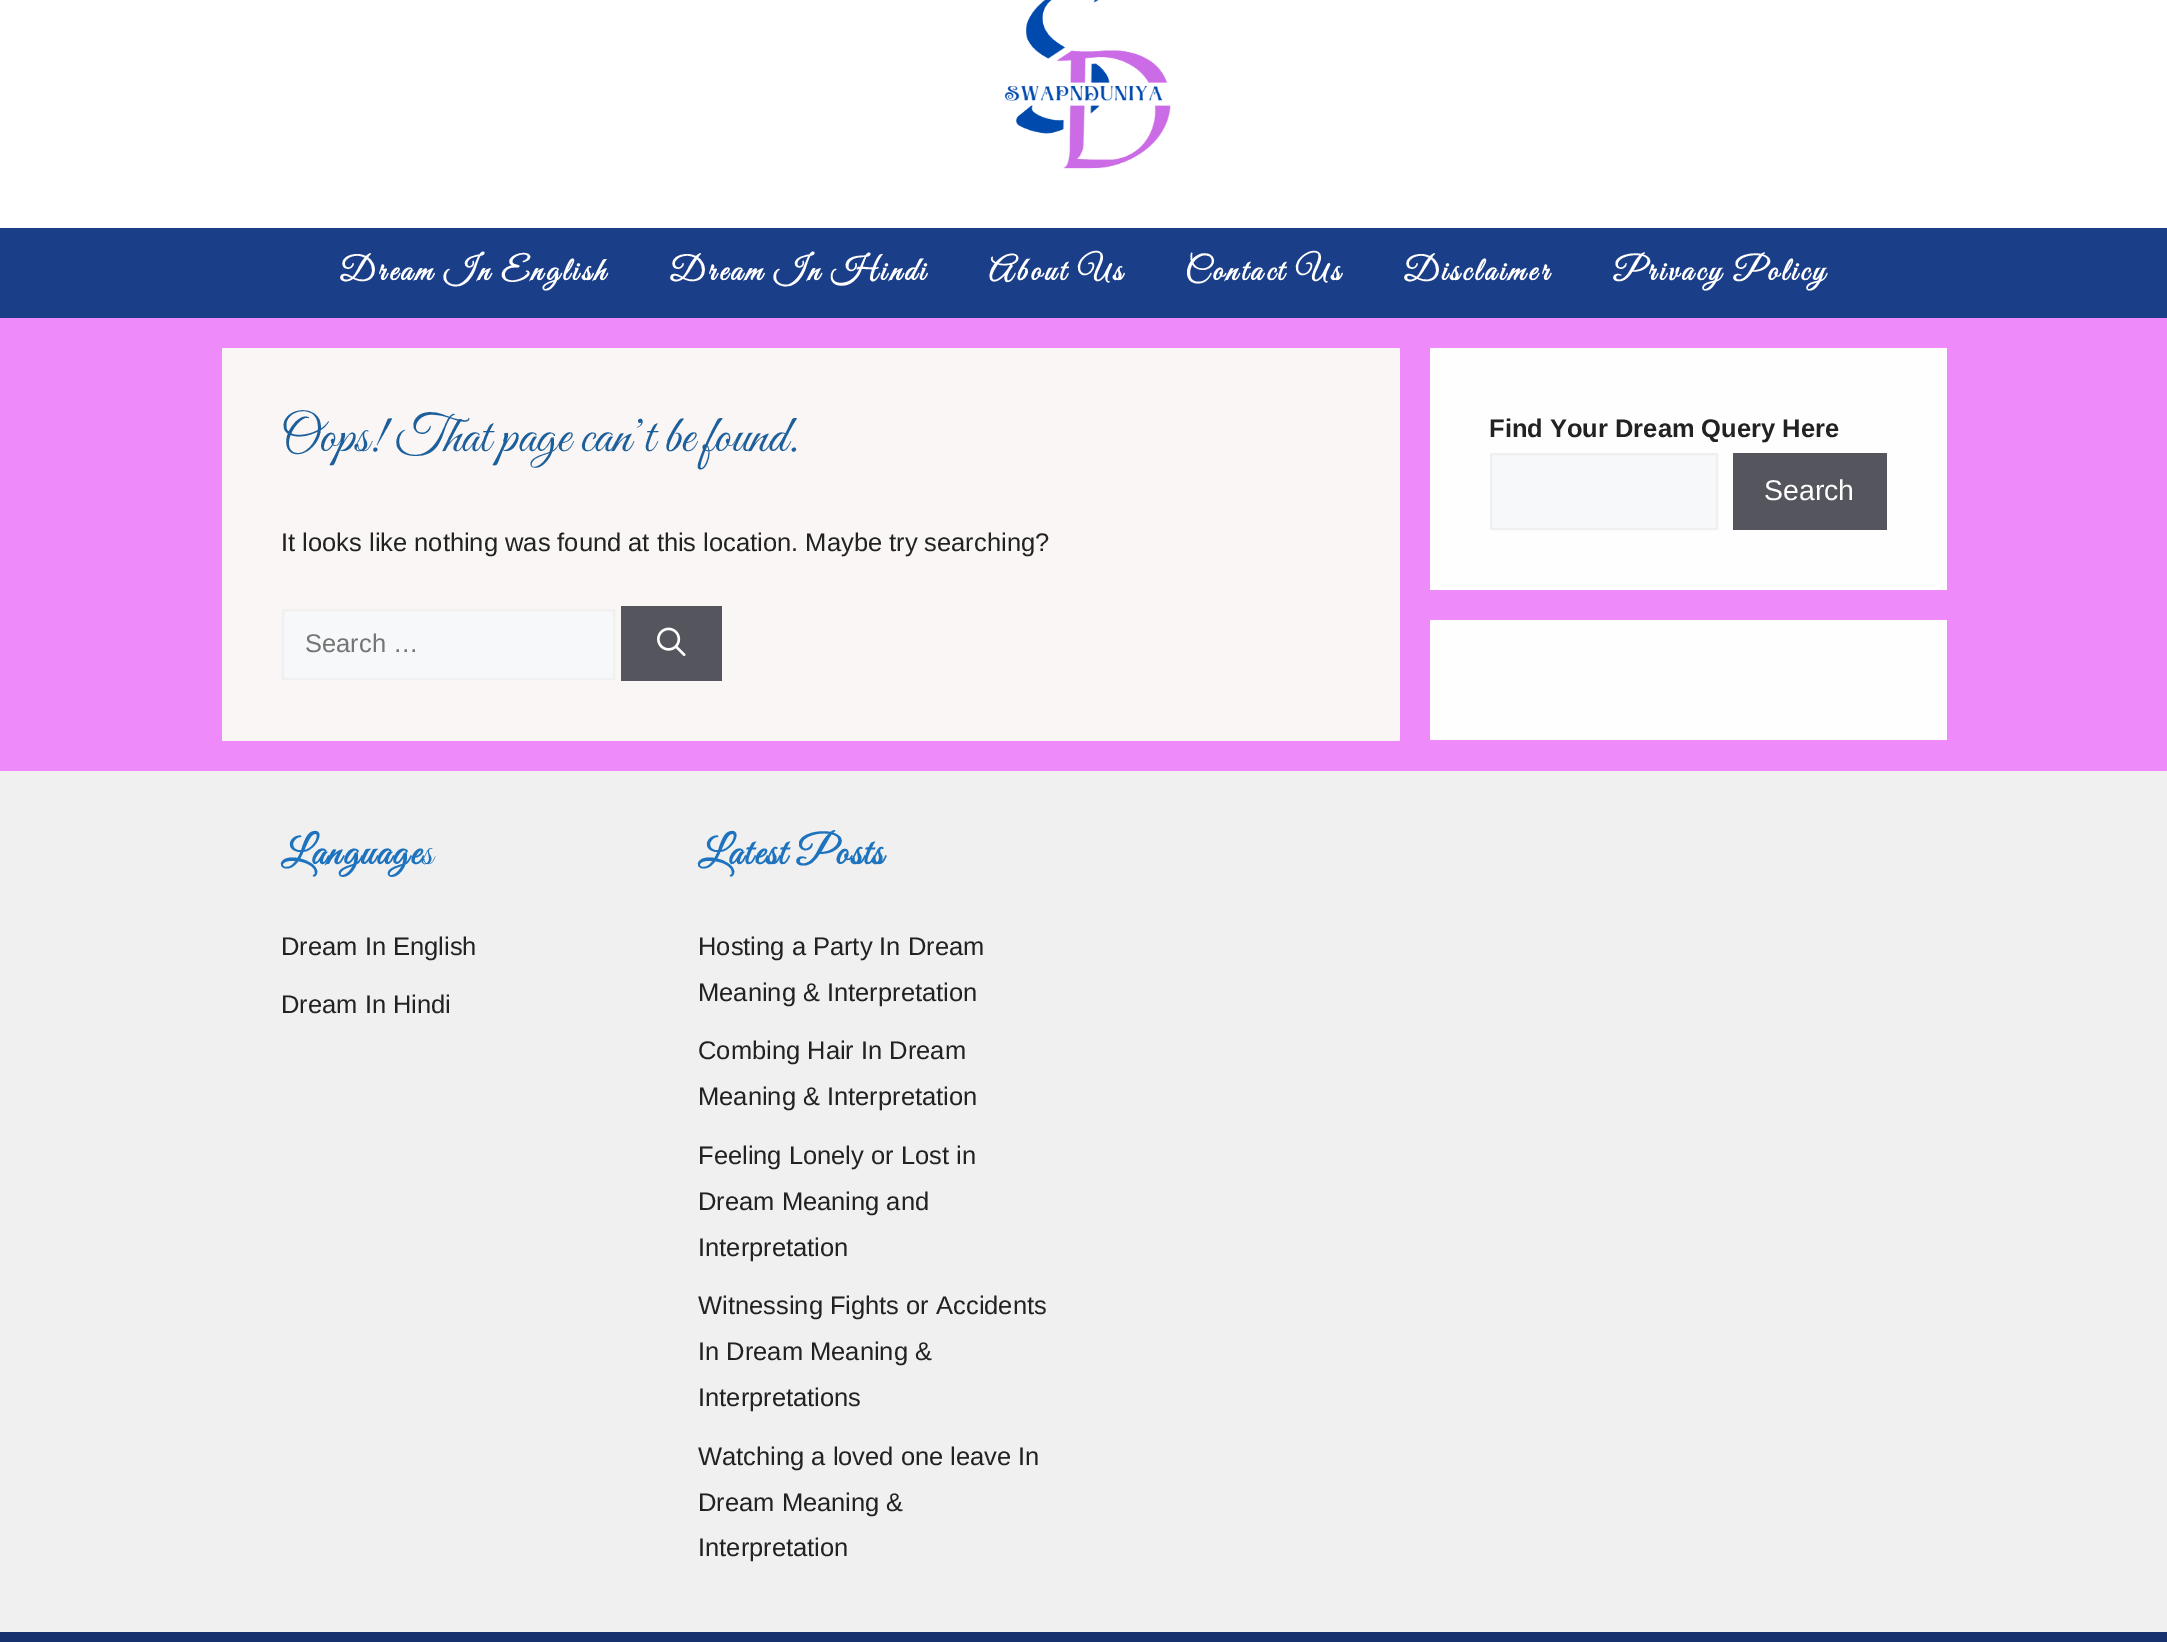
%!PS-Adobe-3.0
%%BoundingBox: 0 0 2167 1642
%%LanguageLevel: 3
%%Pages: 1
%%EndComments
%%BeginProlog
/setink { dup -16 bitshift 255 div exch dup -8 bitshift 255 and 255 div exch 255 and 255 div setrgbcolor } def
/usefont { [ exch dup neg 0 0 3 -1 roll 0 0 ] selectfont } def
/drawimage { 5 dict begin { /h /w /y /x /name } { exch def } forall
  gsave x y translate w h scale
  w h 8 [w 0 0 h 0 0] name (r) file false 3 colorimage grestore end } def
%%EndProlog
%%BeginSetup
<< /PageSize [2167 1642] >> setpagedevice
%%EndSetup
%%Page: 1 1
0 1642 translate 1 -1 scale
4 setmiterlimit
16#EE8AFA setink
0 0 2167 1642 rectfill
16#FFFFFF setink
0 0 2167 228 rectfill
(img1.raw) 1004 0 167 169 drawimage
16#1B3E89 setink
0 228 2167 90 rectfill
/GreatVibes-Bold 33 usefont
16#FFFFFF setink
339 280 moveto 3.25 0 (Dream In English) ashow
669 280 moveto 3.25 0 (Dream In Hindi) ashow
989 280 moveto 3.25 0 (About Us) ashow
1185 280 moveto 3.25 0 (Contact Us) ashow
1403 280 moveto 3.25 0 (Disclaimer) ashow
1613 280 moveto 3.25 0 (Privacy Policy) ashow
16#FBF6F6 setink
222 348 1178 393 rectfill
/GreatVibes-Regular 52.5 usefont
16#1C5F9A setink
281 451 moveto 0.5 0 32 (Oops! That page can’t be found.) widthshow
/LiberationSans-Regular 25.5 usefont
16#222222 setink
281 551 moveto (It looks like nothing was found at this location. Maybe try searching?) show
16#F7F8F9 setink
283 610 moveto 614 610 lineto 614 679 lineto 283 679 lineto closepath gsave fill grestore
16#F0F0F0 setink
2 setlinewidth
stroke
16#757575 setink
305 652 moveto (Search …) show
16#55555E setink
621 606 101 75 rectfill
(img2.raw) 657 627 29 29 drawimage
16#FEFEFF setink
1430 348 517 242 rectfill
/LiberationSans-Bold 25.5 usefont
16#222222 setink
1489 437 moveto (Find Your Dream Query Here) show
16#F7F8F9 setink
1491 454 moveto 1717 454 lineto 1717 529 lineto 1491 529 lineto closepath gsave fill grestore
16#F0F0F0 setink
stroke
16#55555E setink
1733 453 154 77 rectfill
/LiberationSans-Regular 28.5 usefont
16#FFFFFF setink
1764 500 moveto (Search) show
16#FEFEFF setink
1430 620 517 120 rectfill
16#F0F0F0 setink
0 771 2167 861 rectfill
/GreatVibes-Bold 40.5 usefont
16#1E73BE setink
281 864 moveto 1.5 0 (Language) ashow
/GreatVibes-Regular 40.5 usefont
422 864 moveto 1.5 0 (s) ashow
/LiberationSans-Regular 25.5 usefont
16#222222 setink
281 955 moveto (Dream In English) show
281 1013 moveto (Dream In Hindi) show
/GreatVibes-Bold 40.5 usefont
16#1E73BE setink
698 864 moveto 1.5 0 (Latest Posts) ashow
/LiberationSans-Regular 25.5 usefont
16#222222 setink
[
    [(Hosting a Party In Dream) 698 955]
    [(Meaning & Interpretation) 698 1001]
    [(Combing Hair In Dream) 698 1059]
    [(Meaning & Interpretation) 698 1105]
    [(Feeling Lonely or Lost in) 698 1164]
    [(Dream Meaning and) 698 1210]
    [(Interpretation) 698 1256]
    [(Witnessing Fights or Accidents) 698 1314]
    [(In Dream Meaning &) 698 1360]
    [(Interpretations) 698 1406]
    [(Watching a loved one leave In) 698 1465]
    [(Dream Meaning &) 698 1511]
    [(Interpretation) 698 1556]
] { aload pop moveto show } forall
16#17316F setink
0 1632 2167 10 rectfill
showpage
%%EOF
